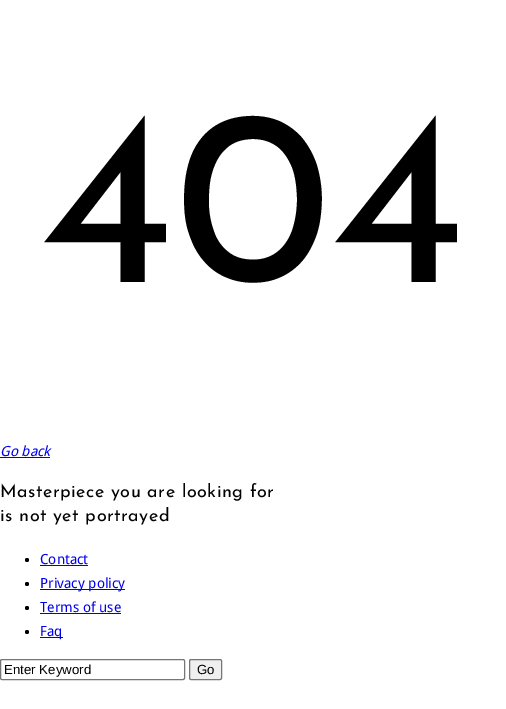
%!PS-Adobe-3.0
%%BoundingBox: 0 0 506 709
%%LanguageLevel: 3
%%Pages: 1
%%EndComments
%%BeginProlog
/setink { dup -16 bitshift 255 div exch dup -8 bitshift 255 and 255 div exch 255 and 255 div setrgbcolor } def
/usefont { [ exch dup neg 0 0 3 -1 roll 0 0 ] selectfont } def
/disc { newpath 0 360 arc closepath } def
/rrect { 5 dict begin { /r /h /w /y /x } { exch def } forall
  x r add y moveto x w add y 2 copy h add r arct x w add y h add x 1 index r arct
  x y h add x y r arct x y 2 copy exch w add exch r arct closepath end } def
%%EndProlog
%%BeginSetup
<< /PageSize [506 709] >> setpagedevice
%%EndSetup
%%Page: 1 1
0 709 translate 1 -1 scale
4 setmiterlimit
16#FFFFFF setink
0 0 506 709 rectfill
/JosefinSans-Regular 250 usefont
16#000000 setink
41 282 moveto 0.5 0 (404) ashow
/DroidSans-Italic 14 usefont
16#0000EE setink
0 456 moveto (Go back) show
0 457 50 1 rectfill
/JosefinSans-Regular 18 usefont
16#000000 setink
0 497 moveto 0.5 0 (Masterpiece you are looking for) ashow
0 521 moveto 0.5 0 (is not yet portrayed) ashow
27 560 2 disc fill
/DroidSans-Regular 14 usefont
16#0000EE setink
40 564 moveto (Contact) show
40 565 48 1 rectfill
16#000000 setink
27 584 2 disc fill
16#0000EE setink
40 589 85 1 rectfill
40 588 moveto (Privacy policy) show
16#000000 setink
27 608 2 disc fill
16#0000EE setink
40 612 moveto (Terms of use) show
40 613 81 1 rectfill
16#000000 setink
27 632 2 disc fill
16#0000EE setink
40 637 23 1 rectfill
40 636 moveto (Faq) show
16#767676 setink
0.5 659.5 184 20 1.5 rrect stroke
/LiberationSans-Regular 13.25 usefont
16#000000 setink
4 674 moveto (Enter Keyword) show
16#EFEFEF setink
189.5 659.5 32 20 1.5 rrect gsave fill grestore
16#767676 setink
stroke
16#000000 setink
197 674 moveto (Go) show
showpage
%%EOF
